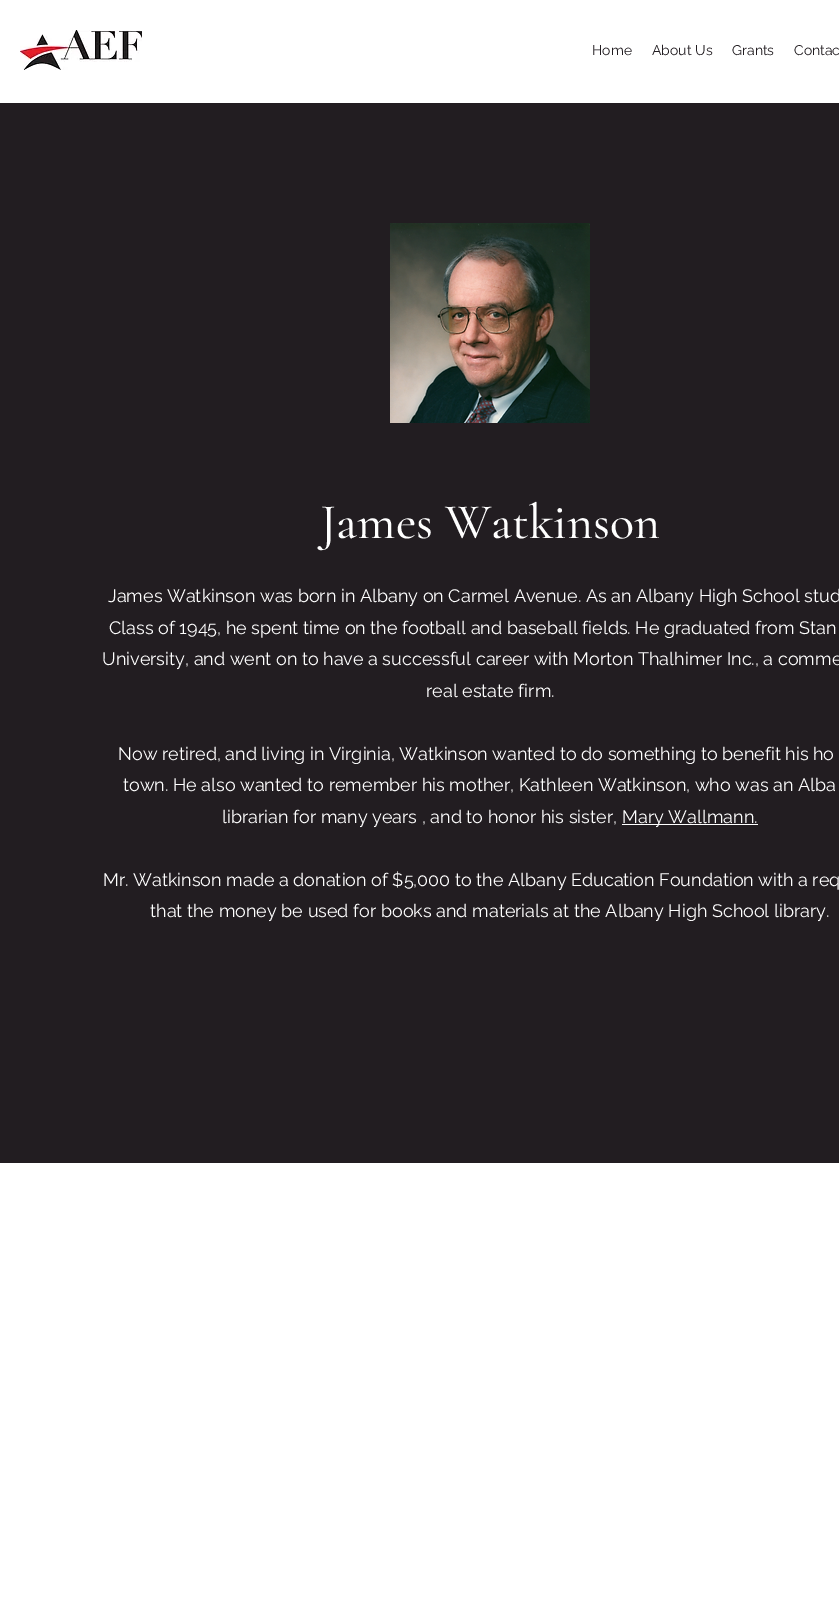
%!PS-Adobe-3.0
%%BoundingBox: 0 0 839 1609
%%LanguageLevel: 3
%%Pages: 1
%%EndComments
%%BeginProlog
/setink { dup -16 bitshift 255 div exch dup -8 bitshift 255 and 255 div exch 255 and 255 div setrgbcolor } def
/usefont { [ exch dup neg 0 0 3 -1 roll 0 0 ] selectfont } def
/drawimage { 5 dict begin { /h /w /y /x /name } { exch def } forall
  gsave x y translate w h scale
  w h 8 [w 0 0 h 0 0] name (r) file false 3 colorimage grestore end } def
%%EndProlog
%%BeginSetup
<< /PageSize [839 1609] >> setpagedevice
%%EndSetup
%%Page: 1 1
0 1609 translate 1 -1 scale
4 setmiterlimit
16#FFFFFF setink
0 0 839 1609 rectfill
(img1.raw) 20 30 122 40 drawimage
/Raleway-Regular 14 usefont
16#221D21 setink
[
    [(Home) 592 55]
    [(About Us) 652 55]
    [(Grants) 732 55]
    [(Contac) 794 55]
] { aload pop moveto show } forall
0 103 839 1060 rectfill
(img2.raw) 390 223 200 200 drawimage
/CormorantGaramond-Medium 50 usefont
16#FFFFFF setink
320 538 moveto (James Watkinson) show
/Raleway-Regular 18 usefont
[
    [(James Watkinson was born in Albany on Carmel Avenue. As an Albany High School stud) 108 602]
    [(Class of 1945, he spent time on the football and baseball fields. He graduated from Stan) 109 634]
    [(University, and went on to have a successful career with Morton Thalhimer Inc., a comme) 102 665]
    [(real estate firm.) 426 697]
    [(Now retired, and living in Virginia, Watkinson wanted to do something to benefit his ho) 118 760]
    [(town. He also wanted to remember his mother, Kathleen Watkinson, who was an Alba) 123 791]
    [(librarian for many years , and to honor his sister,) 222 823]
] { aload pop moveto show } forall
622 824 136 1 rectfill
[
    [(Mary Wallmann.) 622 823]
    [(Mr. Watkinson made a donation of $5,000 to the Albany Education Foundation with a req) 103 886]
    [(that the money be used for books and materials at the Albany High School library.) 150 917]
] { aload pop moveto show } forall
showpage
%%EOF
